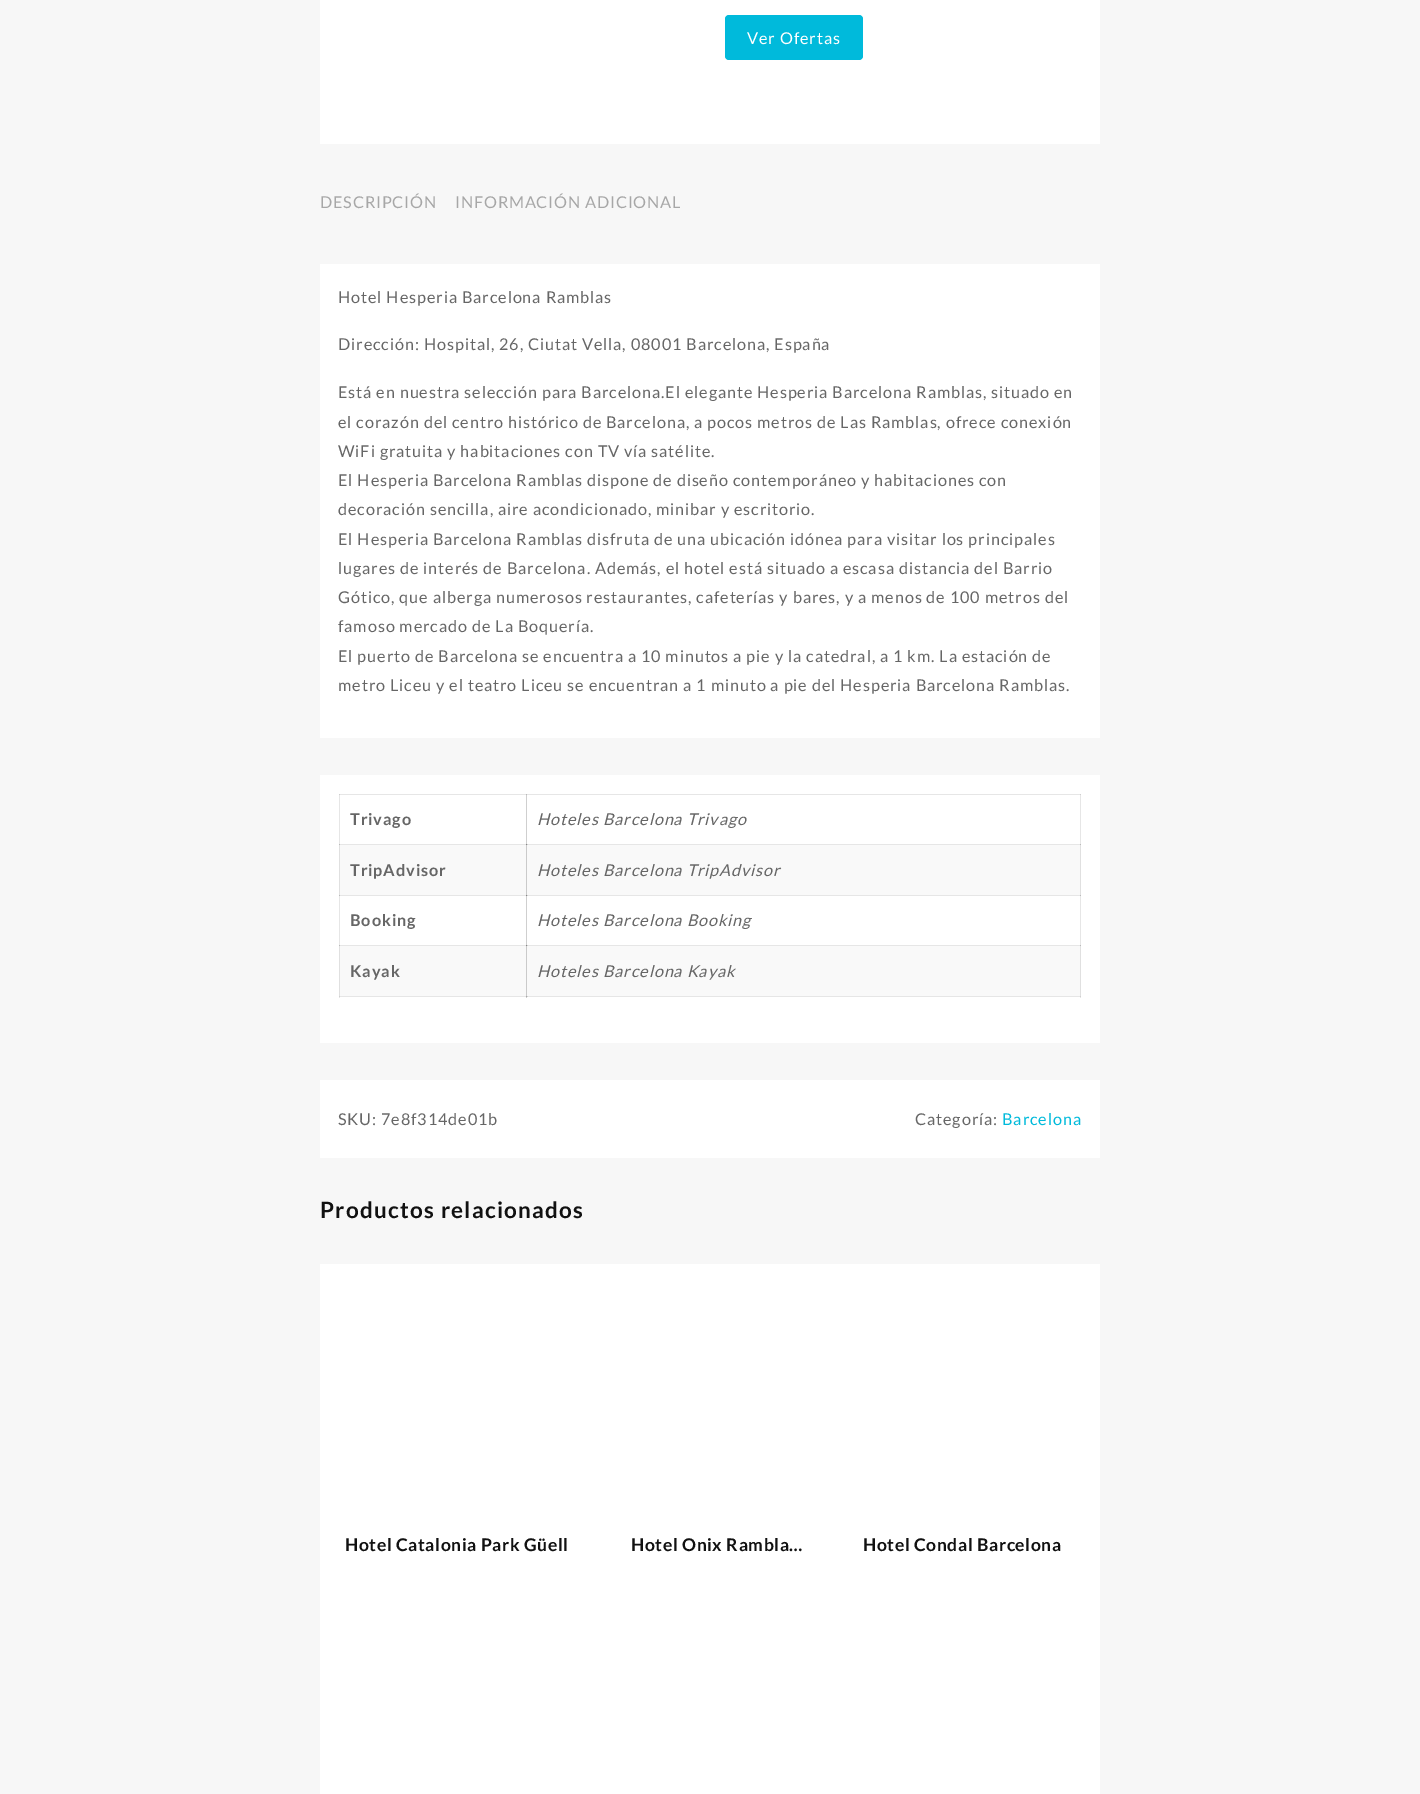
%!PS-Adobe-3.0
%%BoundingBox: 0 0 1420 1794
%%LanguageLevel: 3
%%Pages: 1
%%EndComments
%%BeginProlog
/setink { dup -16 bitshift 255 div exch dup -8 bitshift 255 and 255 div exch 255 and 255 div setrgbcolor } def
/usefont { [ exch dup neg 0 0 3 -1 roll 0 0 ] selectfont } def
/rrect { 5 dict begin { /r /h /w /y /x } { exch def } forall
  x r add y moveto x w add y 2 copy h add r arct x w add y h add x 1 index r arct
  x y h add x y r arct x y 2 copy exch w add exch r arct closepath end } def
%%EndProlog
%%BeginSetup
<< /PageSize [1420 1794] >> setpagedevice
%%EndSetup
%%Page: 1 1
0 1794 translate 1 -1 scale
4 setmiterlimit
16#F7F7F7 setink
0 0 1420 1794 rectfill
16#FFFFFF setink
320 0 780 144 rectfill
16#00BADB setink
725 15 138 45 4 rrect fill
/Lato-Regular 16.25 usefont
16#FFFFFF setink
747 44 moveto 0.88 0 (Ver Ofertas) ashow
16#A7A7A7 setink
320 208 moveto 0.8 0 (DESCRIPCIÓN) ashow
455 208 moveto 0.8 0 (INFORMACIÓN ADICIONAL) ashow
16#FFFFFF setink
320 264 780 474 rectfill
16#666666 setink
338 303 moveto 0.88 0 (Hotel Hesperia Barcelona Ramblas) ashow
338 350 moveto 0.88 0 (Dirección: Hospital, 26, Ciutat Vella, 08001 Barcelona, España) ashow
338 398 moveto 0.88 0 (Está en nuestra selección para Barcelona.El elegante Hesperia Barcelona Ramblas, situado en) ashow
338 428 moveto 0.88 0 (el corazón del centro histórico de Barcelona, a pocos metros de Las Ramblas, ofrece conexión) ashow
338 457 moveto 0.88 0 (WiFi gratuita y habitaciones con TV vía satélite.) ashow
338 486 moveto 0.88 0 (El Hesperia Barcelona Ramblas dispone de diseño contemporáneo y habitaciones con) ashow
338 515 moveto 0.88 0 (decoración sencilla, aire acondicionado, minibar y escritorio.) ashow
338 545 moveto 0.88 0 (El Hesperia Barcelona Ramblas disfruta de una ubicación idónea para visitar los principales) ashow
338 574 moveto 0.88 0 (lugares de interés de Barcelona. Además, el hotel está situado a escasa distancia del Barrio) ashow
338 603 moveto 0.88 0 (Gótico, que alberga numerosos restaurantes, cafeterías y bares, y a menos de 100 metros del) ashow
338 632 moveto 0.88 0 (famoso mercado de La Boquería.) ashow
338 662 moveto 0.88 0 (El puerto de Barcelona se encuentra a 10 minutos a pie y la catedral, a 1 km. La estación de) ashow
338 691 moveto 0.88 0 (metro Liceu y el teatro Liceu se encuentran a 1 minuto a pie del Hesperia Barcelona Ramblas.) ashow
[
    [320 775 780 268 16#FFFFFF]
    [339 794 1 51 16#E6E6E6]
    [339 844 189 1 16#E6E6E6]
    [526 794 1 51 16#CFCFCF]
    [526 844 555 1 16#E6E6E6]
    [526 844 2 1 16#CFCFCF]
    [1080 794 1 51 16#E6E6E6]
    [339 844 1 1 16#BABABA]
    [339 895 742 1 16#E6E6E6]
    [526 844 1 1 16#878787]
    [526 895 2 1 16#CFCFCF]
    [1080 844 1 1 16#BABABA]
    [339 895 1 51 16#E6E6E6]
    [339 895 1 1 16#BABABA]
    [339 945 189 1 16#E6E6E6]
    [526 895 1 51 16#CFCFCF]
    [526 895 1 1 16#878787]
    [526 945 555 1 16#E6E6E6]
    [526 945 2 1 16#CFCFCF]
    [1080 895 1 51 16#E6E6E6]
    [1080 895 1 1 16#BABABA]
    [339 997 1 1 16#E6E6E6]
    [339 945 1 1 16#BABABA]
    [339 996 742 1 16#E6E6E6]
    [339 996 1 1 16#CFCFCF]
    [526 997 1 1 16#CFCFCF]
    [526 945 1 1 16#878787]
    [526 996 2 1 16#CFCFCF]
    [526 996 1 1 16#A7A7A7]
    [1080 997 1 1 16#E6E6E6]
    [1080 945 1 1 16#BABABA]
    [1080 996 1 1 16#CFCFCF]
    [339 794 742 1 16#E6E6E6]
    [339 794 1 1 16#CFCFCF]
    [526 794 1 1 16#BABABA]
    [1080 794 1 1 16#CFCFCF]
] { aload pop setink rectfill } forall
/Lato-Bold 16.25 usefont
16#666666 setink
350 825 moveto 0.88 0 (Trivago) ashow
/Lato-Italic 16.25 usefont
537 825 moveto 0.88 0 (Hoteles Barcelona Trivago) ashow
16#F9F9F9 setink
340 845 186 50 rectfill
16#E0E0E0 setink
339 845 1 50 rectfill
/Lato-Bold 16.25 usefont
16#666666 setink
350 876 moveto 0.88 0 (TripAdvisor) ashow
[
    [527 845 553 50 16#F9F9F9]
    [526 845 1 50 16#CACACA]
    [1080 845 1 50 16#E0E0E0]
] { aload pop setink rectfill } forall
/Lato-Italic 16.25 usefont
16#666666 setink
537 876 moveto 0.88 0 (Hoteles Barcelona TripAdvisor) ashow
/Lato-Bold 16.25 usefont
350 926 moveto 0.88 0 (Booking) ashow
/Lato-Italic 16.25 usefont
537 926 moveto 0.88 0 (Hoteles Barcelona Booking) ashow
16#F9F9F9 setink
340 946 186 50 rectfill
16#E0E0E0 setink
339 946 1 50 rectfill
/Lato-Bold 16.25 usefont
16#666666 setink
350 977 moveto 0.88 0 (Kayak) ashow
[
    [527 946 553 50 16#F9F9F9]
    [526 946 1 50 16#CACACA]
    [1080 946 1 50 16#E0E0E0]
] { aload pop setink rectfill } forall
/Lato-Italic 16.25 usefont
16#666666 setink
537 977 moveto 0.88 0 (Hoteles Barcelona Kayak) ashow
16#FFFFFF setink
320 1080 780 78 rectfill
/Lato-Regular 16.25 usefont
16#666666 setink
338 1125 moveto 0.88 0 (SKU: 7e8f314de01b) ashow
915 1125 moveto 0.88 0 (Categoría:) ashow
16#00BADB setink
1002 1125 moveto 0.88 0 (Barcelona) ashow
/Lato-Bold 22.5 usefont
16#111111 setink
320 1218 moveto 1.25 0 (Productos relacionados) ashow
16#FFFFFF setink
320 1264 780 530 rectfill
/Lato-Bold 17.5 usefont
16#111111 setink
345 1551 moveto 0.6 0 (Hotel Catalonia Park Güell) ashow
631 1551 moveto 0.6 0 (Hotel Onix Rambla…) ashow
863 1551 moveto 0.6 0 (Hotel Condal Barcelona) ashow
showpage
%%EOF
